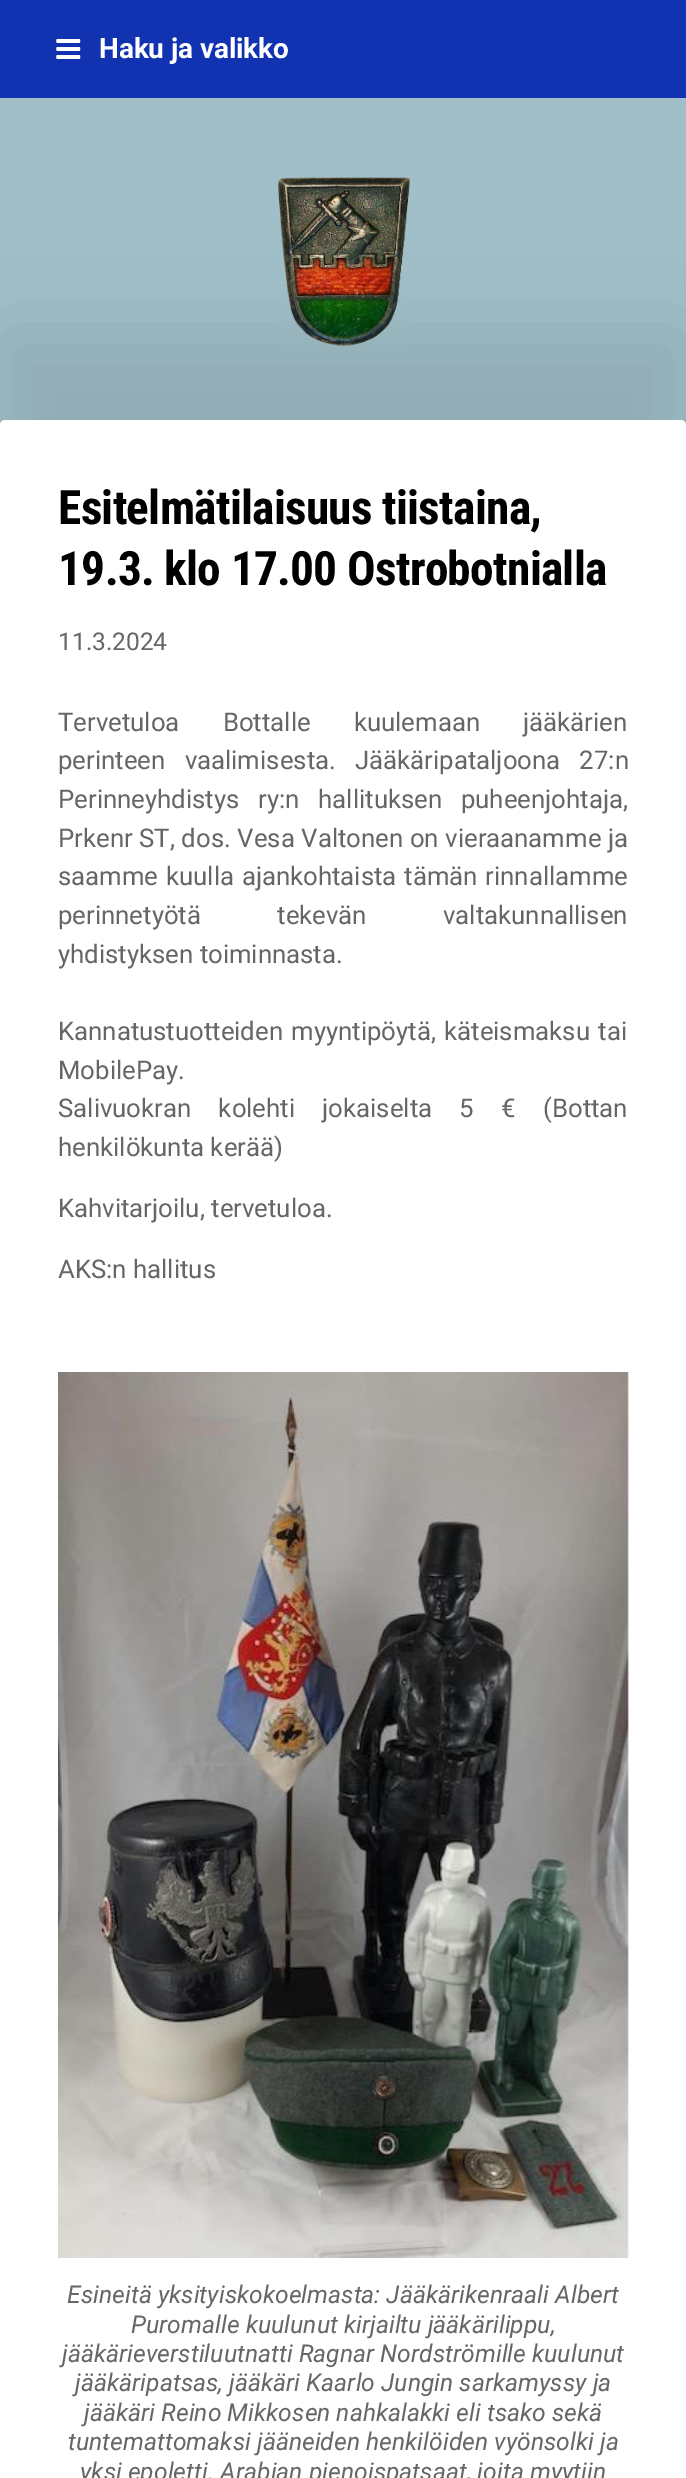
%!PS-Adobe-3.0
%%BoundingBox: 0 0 686 2478
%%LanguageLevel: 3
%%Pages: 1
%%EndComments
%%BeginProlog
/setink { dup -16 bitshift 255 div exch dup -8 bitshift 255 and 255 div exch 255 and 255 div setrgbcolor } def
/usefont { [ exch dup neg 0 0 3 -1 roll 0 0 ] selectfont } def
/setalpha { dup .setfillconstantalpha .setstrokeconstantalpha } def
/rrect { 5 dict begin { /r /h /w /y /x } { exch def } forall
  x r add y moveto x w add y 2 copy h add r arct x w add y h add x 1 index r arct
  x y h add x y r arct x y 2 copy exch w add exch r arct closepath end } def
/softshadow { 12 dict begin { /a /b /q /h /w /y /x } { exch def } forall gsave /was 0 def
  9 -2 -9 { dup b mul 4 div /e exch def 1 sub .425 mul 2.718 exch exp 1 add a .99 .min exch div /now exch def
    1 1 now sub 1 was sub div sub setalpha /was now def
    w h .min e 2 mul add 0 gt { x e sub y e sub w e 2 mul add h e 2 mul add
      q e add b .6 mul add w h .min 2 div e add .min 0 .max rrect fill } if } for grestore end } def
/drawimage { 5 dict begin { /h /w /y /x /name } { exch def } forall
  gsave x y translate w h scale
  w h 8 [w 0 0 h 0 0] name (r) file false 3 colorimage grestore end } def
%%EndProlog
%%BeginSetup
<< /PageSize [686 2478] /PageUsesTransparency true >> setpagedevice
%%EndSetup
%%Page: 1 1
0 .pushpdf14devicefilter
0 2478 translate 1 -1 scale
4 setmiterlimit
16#A0BFC8 setink
0 0 686 2478 rectfill
16#1233B1 setink
0 0 686 98 rectfill
(img1.raw) 56 39 25 20 drawimage
/Roboto-Bold 28 usefont
16#FFFFFF setink
99 58 moveto -0.1 0 (Haku ja valikko) ashow
16#000000 setink
0 333 686 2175 5 44 0.1 softshadow
(img2.raw) 277 177 133 169 drawimage
16#FFFFFF setink
0 420 686 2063 5 rrect fill
/RobotoCondensed-Bold 47.4 usefont
16#000000 setink
58 524 moveto -0.7 0 (Esitelmätilaisuus tiistaina,) ashow
58 585 moveto -0.7 0 (19.3. klo 17.00 Ostrobotnialla) ashow
/Roboto-Regular 24.5 usefont
16#666666 setink
58 650 moveto (11.3.2024) show
/Roboto-Regular 25.75 usefont
58 731 moveto 37 0 32 (Tervetuloa Bottalle kuulemaan jääkärien) widthshow
58 769 moveto 13 0 32 (perinteen vaalimisesta. Jääkäripataljoona 27:n) widthshow
58 808 moveto 12.5 0 32 (Perinneyhdistys ry:n hallituksen puheenjohtaja,) widthshow
58 847 moveto 0.25 0 32 (Prkenr ST, dos. Vesa Valtonen on vieraanamme ja) widthshow
58 885 moveto 1.5 0 32 (saamme kuulla ajankohtaista tämän rinnallamme) widthshow
58 924 moveto 70 0 32 (perinnetyötä tekevän valtakunnallisen) widthshow
58 963 moveto (yhdistyksen toiminnasta.) show
58 1040 moveto 2 0 32 (Kannatustuotteiden myyntipöytä, käteismaksu tai) widthshow
58 1079 moveto (MobilePay.) show
58 1117 moveto 21 0 32 (Salivuokran kolehti jokaiselta 5 € \(Bottan) widthshow
[
    [(henkilökunta kerää\)) 58 1156]
    [(Kahvitarjoilu, tervetuloa.) 58 1217]
    [(AKS:n hallitus) 58 1278]
] { aload pop moveto show } forall
(img3.raw) 58 1372 571 886 drawimage
/Roboto-Italic 24.5 usefont
[
    [(Esineitä yksityiskokoelmasta: Jääkärikenraali Albert) 67 2303]
    [(Puromalle kuulunut kirjailtu jääkärilippu,) 131 2333]
    [(jääkärieverstiluutnatti Ragnar Nordströmille kuulunut) 62 2362]
    [(jääkäripatsas, jääkäri Kaarlo Jungin sarkamyssy ja) 75 2391]
    [(jääkäri Reino Mikkosen nahkalakki eli tsako sekä) 84 2421]
    [(tuntemattomaksi jääneiden henkilöiden vyönsolki ja) 68 2450]
    [(yksi epoletti. Arabian pienoispatsaat, joita myytiin) 80 2480]
] { aload pop moveto show } forall
.poppdf14devicefilter showpage
%%EOF
